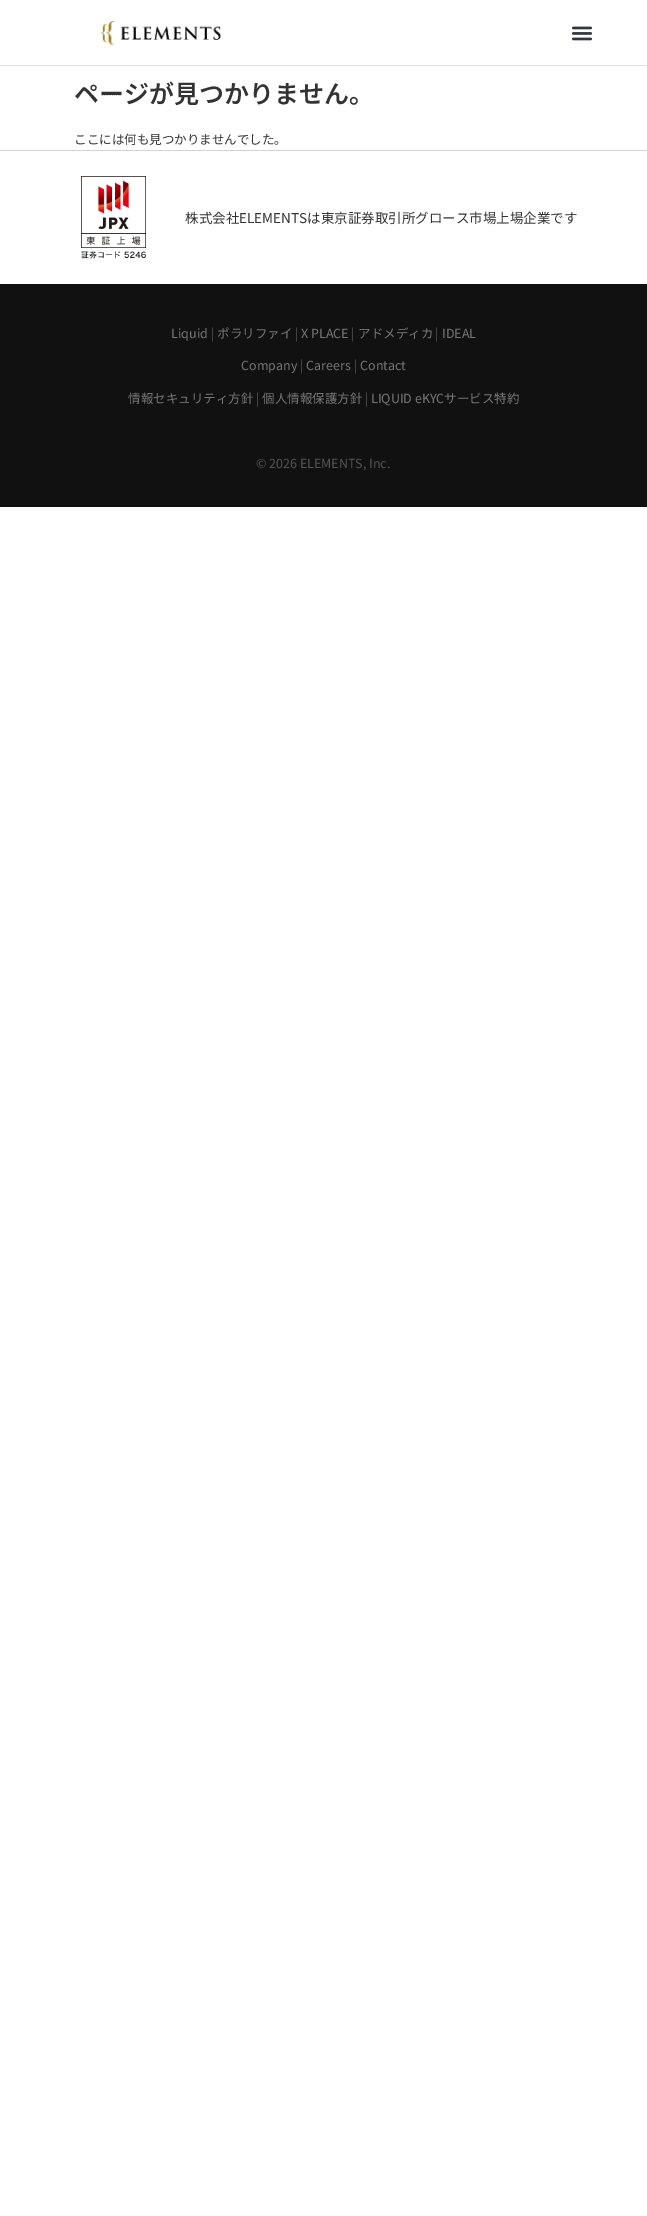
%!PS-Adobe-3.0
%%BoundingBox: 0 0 647 2216
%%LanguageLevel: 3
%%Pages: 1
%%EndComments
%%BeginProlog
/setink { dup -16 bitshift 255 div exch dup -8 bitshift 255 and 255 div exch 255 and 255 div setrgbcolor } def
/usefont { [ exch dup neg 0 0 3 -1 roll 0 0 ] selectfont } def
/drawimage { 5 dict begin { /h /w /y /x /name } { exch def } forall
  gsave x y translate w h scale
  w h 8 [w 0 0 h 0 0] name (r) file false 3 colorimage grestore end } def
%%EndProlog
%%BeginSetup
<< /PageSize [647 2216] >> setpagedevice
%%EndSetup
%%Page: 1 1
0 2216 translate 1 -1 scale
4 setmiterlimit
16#FFFFFF setink
0 0 647 2216 rectfill
16#E9E1C8 setink
0 65 647 1 rectfill
(img1.raw) 101 21 120 24 drawimage
(img2.raw) 571 26 22 15 drawimage
/NotoSansJP-SemiBold 25 usefont
16#333333 setink
74 103 moveto (ページが見つかりません。) show
/NotoSansJP-Regular 12.5 usefont
74 144 moveto (ここには何も見つかりませんでした。) show
16#D3D3D3 setink
0 150 647 1 rectfill
(img3.raw) 81 176 65 83 drawimage
/NotoSansJP-Regular 13.5 usefont
16#333333 setink
185 223 moveto (株式会社ELEMENTSは東京証券取引所グロース市場上場企業です) show
16#111111 setink
0 284 647 223 rectfill
/NotoSansJP-Regular 12.5 usefont
16#777777 setink
171 338 moveto (Liquid) show
16#555555 setink
211 338 moveto (|) show
16#777777 setink
217 338 moveto (ポラリファイ) show
16#555555 setink
295 338 moveto (|) show
16#777777 setink
301 338 moveto (X PLACE) show
16#555555 setink
351 338 moveto (|) show
16#777777 setink
358 338 moveto (アドメディカ) show
16#555555 setink
435 338 moveto (|) show
16#777777 setink
442 338 moveto (IDEAL) show
241 370 moveto (Company) show
16#555555 setink
300 370 moveto (|) show
16#777777 setink
306 370 moveto (Careers) show
16#555555 setink
354 370 moveto (|) show
16#777777 setink
360 370 moveto (Contact) show
128 403 moveto (情報セキュリティ方針) show
16#555555 setink
256 403 moveto (|) show
16#777777 setink
262 403 moveto (個人情報保護方針) show
16#555555 setink
365 403 moveto (|) show
16#777777 setink
371 403 moveto (LIQUID eKYCサービス特約) show
16#555555 setink
256 468 moveto (© 2026 ELEMENTS, Inc.) show
showpage
%%EOF
